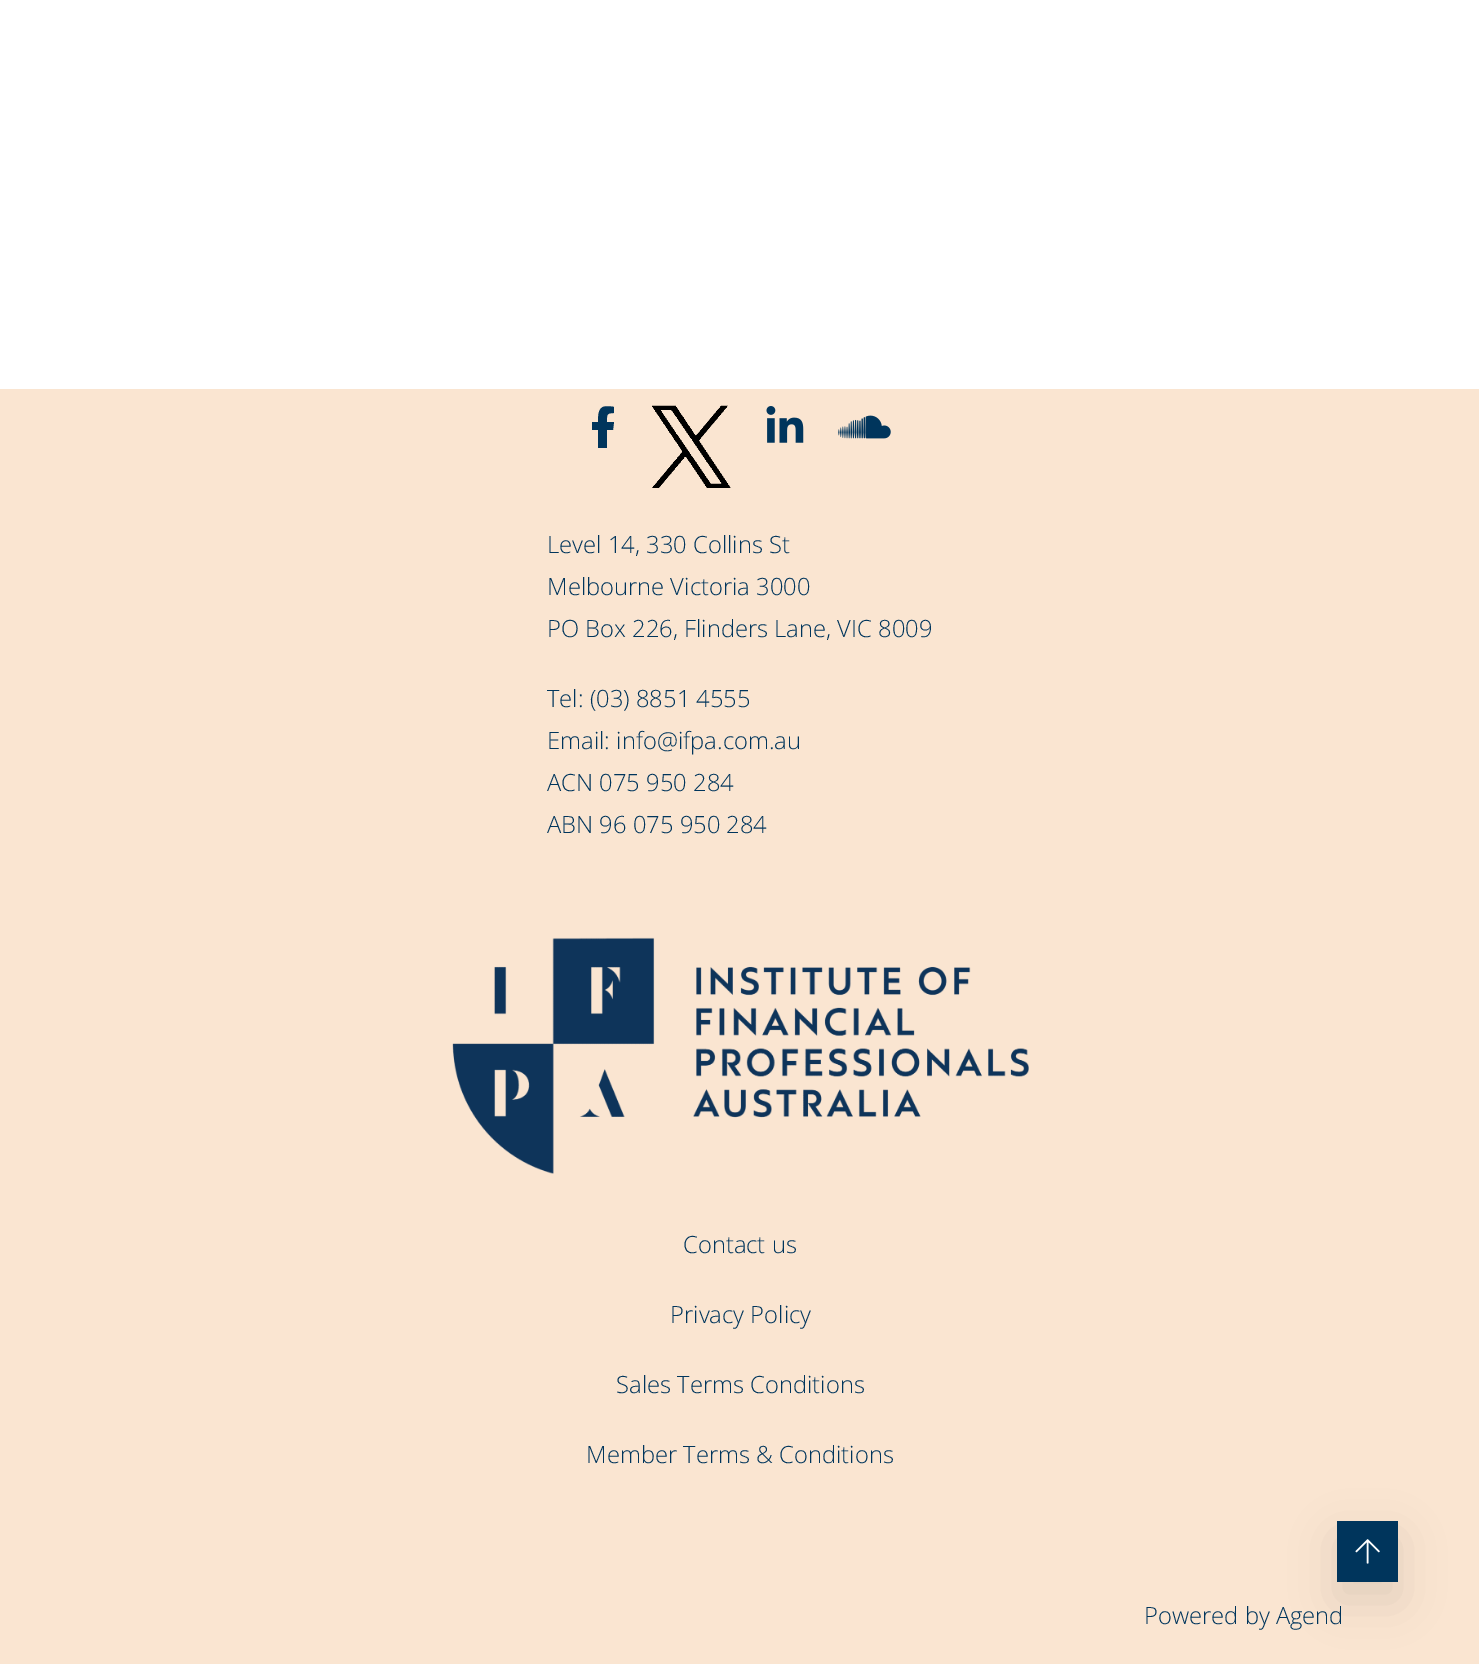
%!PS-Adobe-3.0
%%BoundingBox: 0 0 1479 1664
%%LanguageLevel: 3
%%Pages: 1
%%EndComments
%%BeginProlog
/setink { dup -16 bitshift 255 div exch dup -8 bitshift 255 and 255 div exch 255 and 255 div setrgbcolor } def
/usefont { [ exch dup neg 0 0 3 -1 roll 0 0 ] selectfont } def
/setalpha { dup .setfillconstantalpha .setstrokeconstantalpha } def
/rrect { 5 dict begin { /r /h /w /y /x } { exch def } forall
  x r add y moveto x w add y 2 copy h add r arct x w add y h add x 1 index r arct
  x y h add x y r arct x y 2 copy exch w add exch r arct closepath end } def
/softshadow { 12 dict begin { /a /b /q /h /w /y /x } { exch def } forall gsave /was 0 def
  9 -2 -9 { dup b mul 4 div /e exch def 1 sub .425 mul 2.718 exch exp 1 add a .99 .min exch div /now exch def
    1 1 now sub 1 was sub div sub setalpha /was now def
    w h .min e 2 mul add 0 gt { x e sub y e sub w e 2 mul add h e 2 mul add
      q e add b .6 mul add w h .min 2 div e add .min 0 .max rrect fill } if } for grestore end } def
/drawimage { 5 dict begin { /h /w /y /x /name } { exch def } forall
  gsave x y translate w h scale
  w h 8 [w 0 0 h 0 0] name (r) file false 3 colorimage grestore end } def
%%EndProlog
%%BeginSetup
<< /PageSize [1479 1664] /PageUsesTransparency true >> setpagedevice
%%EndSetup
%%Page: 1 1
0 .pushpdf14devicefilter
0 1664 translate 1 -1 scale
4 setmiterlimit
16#FFFFFF setink
0 0 1479 1664 rectfill
16#FAE5D1 setink
0 389 1479 1275 rectfill
16#00355C setink
613 430 moveto 614 422 lineto 607 422 lineto 607 415 606 413 614 413 curveto 614 407 lineto 600 404 598 409 598 422 curveto 592 422 lineto 592 430 lineto 598 430 lineto 598 448 lineto 607 448 lineto 607 430 lineto closepath fill
(img1.raw) 652 405 79 83 drawimage
(img2.raw) 766 406 38 37 drawimage
(img3.raw) 838 415 53 24 drawimage
/OpenSans-Light 23.75 usefont
[
    [(Level 14, 330 Collins St) 547 553]
    [(Melbourne Victoria 3000) 547 595]
    [(PO Box 226, Flinders Lane, VIC 8009) 547 637]
    [(Tel: \(03\) 8851 4555) 547 707]
    [(Email: info@ifpa.com.au) 547 749]
    [(ACN 075 950 284) 547 791]
    [(ABN 96 075 950 284) 547 833]
] { aload pop moveto show } forall
(img4.raw) 452 937 577 237 drawimage
[
    [(Contact us) 683 1253]
    [(Privacy Policy) 670 1323]
    [(Sales Terms Conditions) 616 1393]
    [(Member Terms & Conditions) 586 1463]
    [(Powered by Agend) 1144 1624]
] { aload pop moveto show } forall
16#000000 setink
1337 1538 61 62 0 22 0.1 softshadow
16#00355C setink
1337 1521 61 61 rectfill
(img5.raw) 1355 1539 25 25 drawimage
.poppdf14devicefilter showpage
%%EOF
